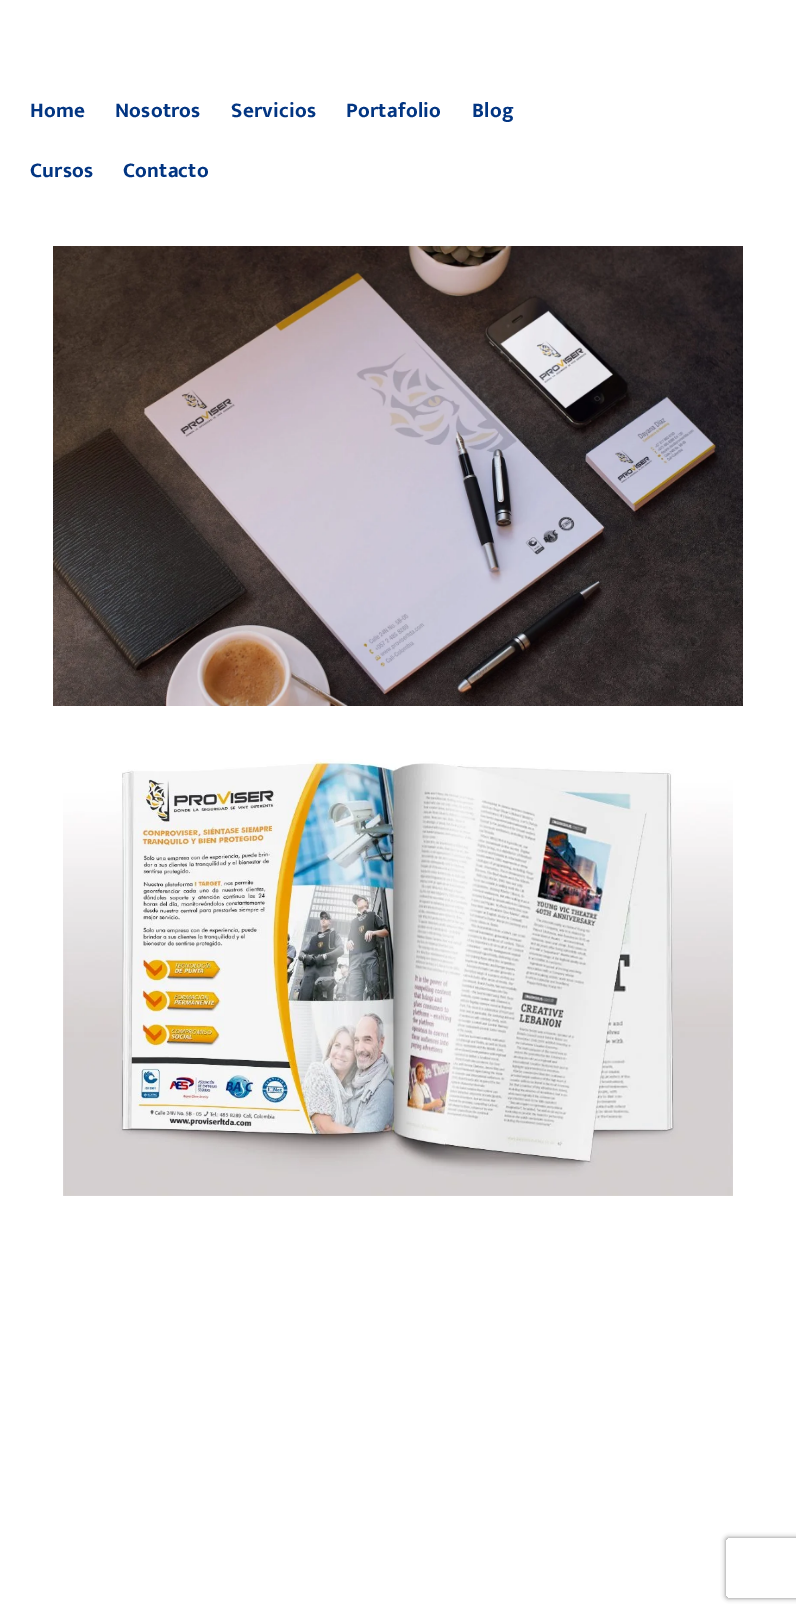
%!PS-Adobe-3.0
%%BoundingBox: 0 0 796 1612
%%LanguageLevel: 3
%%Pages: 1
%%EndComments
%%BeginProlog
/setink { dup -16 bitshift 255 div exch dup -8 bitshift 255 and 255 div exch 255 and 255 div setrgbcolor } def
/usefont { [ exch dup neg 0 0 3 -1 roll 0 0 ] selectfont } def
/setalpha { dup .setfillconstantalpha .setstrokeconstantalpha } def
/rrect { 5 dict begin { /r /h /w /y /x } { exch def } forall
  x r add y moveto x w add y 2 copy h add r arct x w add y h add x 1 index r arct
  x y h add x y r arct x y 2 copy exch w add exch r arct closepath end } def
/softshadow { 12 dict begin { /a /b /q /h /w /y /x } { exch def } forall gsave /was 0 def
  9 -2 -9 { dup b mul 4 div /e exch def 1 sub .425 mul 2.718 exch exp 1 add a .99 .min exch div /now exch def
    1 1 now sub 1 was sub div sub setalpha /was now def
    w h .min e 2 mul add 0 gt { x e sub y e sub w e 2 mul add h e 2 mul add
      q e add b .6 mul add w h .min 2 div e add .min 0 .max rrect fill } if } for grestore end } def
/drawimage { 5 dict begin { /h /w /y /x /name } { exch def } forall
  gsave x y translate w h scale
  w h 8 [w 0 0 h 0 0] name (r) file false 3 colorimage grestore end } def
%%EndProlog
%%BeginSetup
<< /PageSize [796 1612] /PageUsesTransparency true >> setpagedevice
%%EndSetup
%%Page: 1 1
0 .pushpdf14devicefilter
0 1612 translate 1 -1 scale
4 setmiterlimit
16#FFFFFF setink
0 0 796 1612 rectfill
/Mukta-Bold 21 usefont
16#023582 setink
30 117 moveto 0.25 0 (Home) ashow
115 117 moveto 0.25 0 (Nosotros) ashow
231 117 moveto 0.25 0 (Servicios) ashow
346 117 moveto 0.25 0 (Portafolio) ashow
472 117 moveto 0.25 0 (Blog) ashow
30 177 moveto 0.25 0 (Cursos) ashow
123 177 moveto 0.25 0 (Contacto) ashow
(img1.raw) 53 246 690 460 drawimage
(img2.raw) 63 759 670 437 drawimage
gsave
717 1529 moveto 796 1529 lineto 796 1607 lineto 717 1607 lineto closepath 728 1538 moveto 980 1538 lineto 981 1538 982 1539 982 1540 curveto 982 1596 lineto 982 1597 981 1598 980 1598 curveto 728 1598 lineto 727 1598 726 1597 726 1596 curveto 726 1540 lineto 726 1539 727 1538 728 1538 curveto closepath eoclip newpath
16#808080 setink
726 1538 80 60 2 2.5 1 softshadow
grestore
.poppdf14devicefilter showpage
%%EOF
